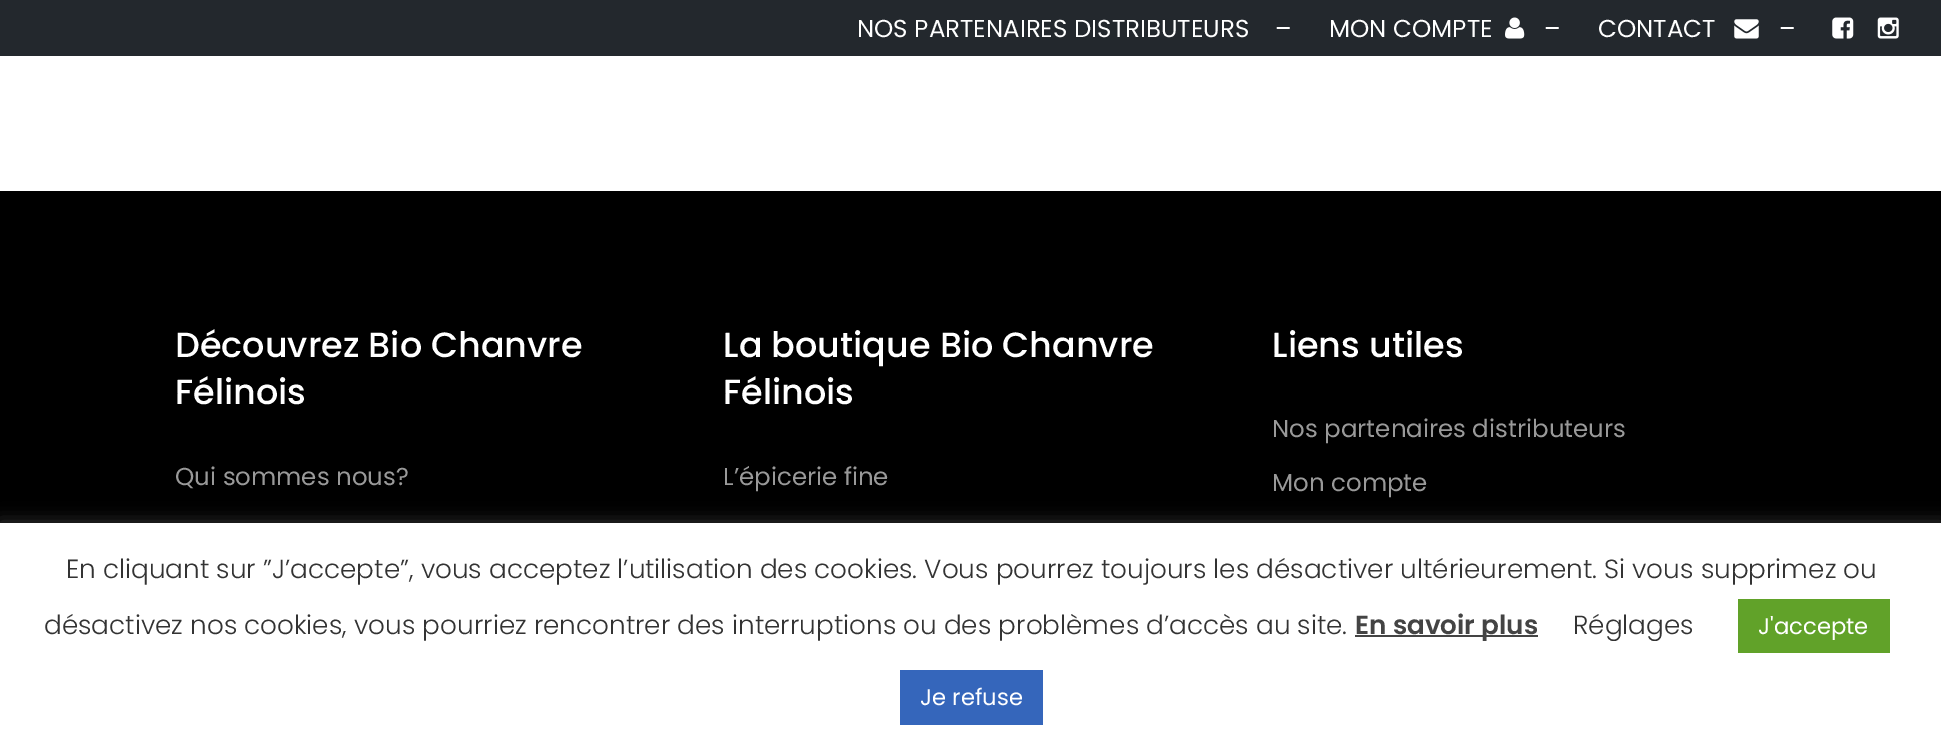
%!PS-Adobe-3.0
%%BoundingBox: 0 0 1941 753
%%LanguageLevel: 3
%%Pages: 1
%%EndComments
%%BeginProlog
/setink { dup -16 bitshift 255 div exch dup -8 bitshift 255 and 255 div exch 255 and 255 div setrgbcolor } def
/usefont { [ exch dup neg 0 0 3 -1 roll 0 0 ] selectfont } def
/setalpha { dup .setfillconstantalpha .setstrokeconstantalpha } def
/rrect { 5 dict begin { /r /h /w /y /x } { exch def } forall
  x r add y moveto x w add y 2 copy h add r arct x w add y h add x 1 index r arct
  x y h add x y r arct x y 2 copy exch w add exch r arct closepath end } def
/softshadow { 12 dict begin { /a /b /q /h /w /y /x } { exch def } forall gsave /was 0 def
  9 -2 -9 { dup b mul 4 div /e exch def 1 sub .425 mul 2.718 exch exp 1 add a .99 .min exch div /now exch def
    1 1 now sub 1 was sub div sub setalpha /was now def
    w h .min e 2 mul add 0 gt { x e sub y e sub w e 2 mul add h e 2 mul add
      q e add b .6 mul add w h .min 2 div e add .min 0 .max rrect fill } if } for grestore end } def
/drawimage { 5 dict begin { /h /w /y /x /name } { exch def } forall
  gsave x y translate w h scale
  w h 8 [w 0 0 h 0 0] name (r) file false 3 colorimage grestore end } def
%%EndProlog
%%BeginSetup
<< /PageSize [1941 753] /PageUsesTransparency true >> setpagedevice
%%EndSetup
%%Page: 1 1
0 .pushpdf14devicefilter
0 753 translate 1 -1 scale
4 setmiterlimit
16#FFFFFF setink
0 0 1941 753 rectfill
16#23282D setink
0 0 1941 56 rectfill
/Poppins-Regular 24.5 usefont
16#FFFFFF setink
[
    [(NOS PARTENAIRES DISTRIBUTEURS) 857 37]
    [(–) 1275 37]
    [(MON COMPTE) 1329 37]
] { aload pop moveto show } forall
(img1.raw) 1505 17 20 22 drawimage
1544 37 moveto (–) show
1598 37 moveto (CONTACT) show
(img2.raw) 1734 19 25 20 drawimage
1779 37 moveto (–) show
(img3.raw) 1832 17 22 22 drawimage
(img4.raw) 1877 17 22 22 drawimage
16#000000 setink
0 191 1941 332 rectfill
/Poppins-Medium 35 usefont
16#FFFFFF setink
175 357 moveto (Découvrez Bio Chanvre) show
175 404 moveto (Félinois) show
/Poppins-Regular 24.5 usefont
16#999999 setink
175 485 moveto (Qui sommes nous?) show
/Poppins-Medium 35 usefont
16#FFFFFF setink
723 357 moveto (La boutique Bio Chanvre) show
723 404 moveto (Félinois) show
/Poppins-Regular 24.5 usefont
16#999999 setink
723 485 moveto (L’épicerie fine) show
/Poppins-Medium 35 usefont
16#FFFFFF setink
1272 357 moveto (Liens utiles) show
/Poppins-Regular 24.5 usefont
16#999999 setink
1272 437 moveto (Nos partenaires distributeurs) show
1272 491 moveto (Mon compte) show
16#ACABAB setink
0 522 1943 231 0 9 0.3 softshadow
16#FFFFFF setink
0 523 1941 230 rectfill
/Poppins-Light 26.25 usefont
16#333333 setink
66 578 moveto (En cliquant sur ”J’accepte”, vous acceptez l’utilisation des cookies. Vous pourrez toujours les désactiver ultérieurement. Si vous supprimez ou) show
44 634 moveto (désactivez nos cookies, vous pourriez rencontrer des interruptions ou des problèmes d’accès au site.) show
16#444444 setink
1355 635 183 2 rectfill
/Poppins-SemiBold 26.25 usefont
1355 634 moveto (En savoir plus) show
/Poppins-Light 26.25 usefont
16#333333 setink
1573 634 moveto (Réglages) show
16#61A229 setink
1738 599 152 54 rectfill
/Poppins-Regular 22.75 usefont
16#FFFFFF setink
1758 634 moveto (J'accepte) show
16#3566BB setink
900 670 143 55 rectfill
16#FFFFFF setink
920 705 moveto (Je refuse) show
.poppdf14devicefilter showpage
%%EOF
